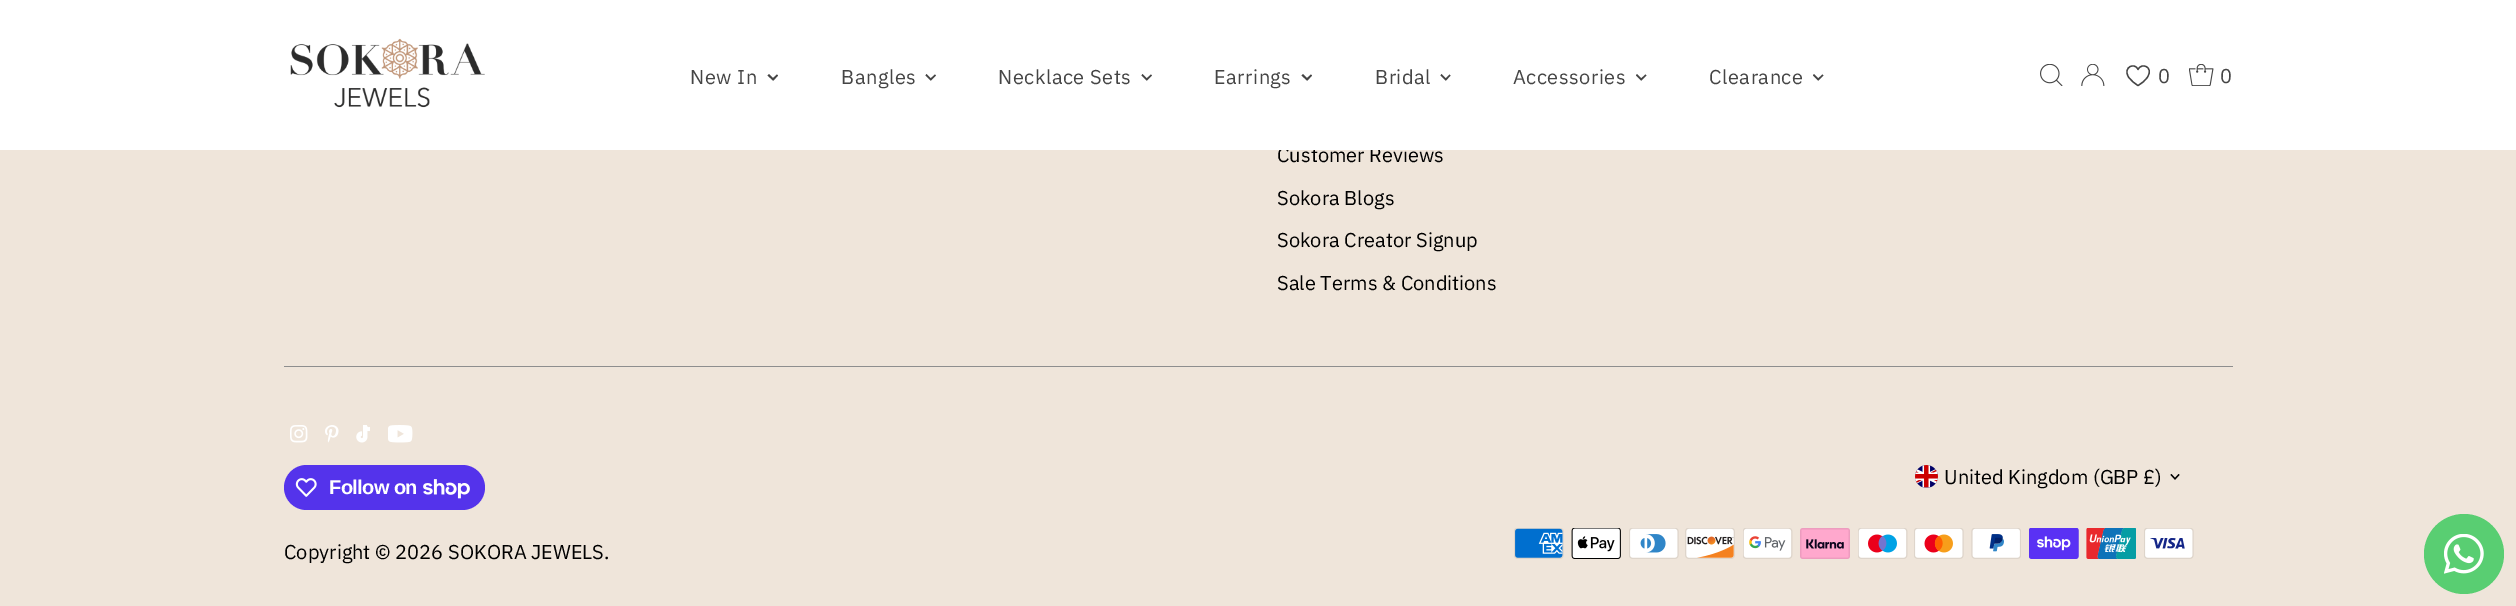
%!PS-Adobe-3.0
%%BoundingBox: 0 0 2516 606
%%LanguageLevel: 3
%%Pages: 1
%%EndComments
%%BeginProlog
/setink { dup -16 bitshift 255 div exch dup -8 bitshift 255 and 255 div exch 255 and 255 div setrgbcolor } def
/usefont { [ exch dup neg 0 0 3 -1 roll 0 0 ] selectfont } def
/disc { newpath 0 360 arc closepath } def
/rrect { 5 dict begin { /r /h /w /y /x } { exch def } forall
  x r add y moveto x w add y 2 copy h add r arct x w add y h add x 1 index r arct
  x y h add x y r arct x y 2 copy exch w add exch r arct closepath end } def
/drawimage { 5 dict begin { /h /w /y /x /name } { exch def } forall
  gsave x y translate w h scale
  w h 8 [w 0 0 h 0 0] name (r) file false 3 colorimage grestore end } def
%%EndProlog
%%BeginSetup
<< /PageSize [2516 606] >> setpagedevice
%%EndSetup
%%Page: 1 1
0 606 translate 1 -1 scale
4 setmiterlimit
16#EFE5DA setink
0 0 2516 606 rectfill
/IBMPlexSans-Regular 20 usefont
16#000000 setink
1277 162 moveto (Customer Reviews) show
16#FFFFFF setink
0 0 2516 150 rectfill
(img1.raw) 290 38 195 70 drawimage
16#454545 setink
690 84 moveto 0.5 0 (New In) ashow
777 74.5 moveto 778 75.5 lineto 773.5 80.5 lineto 772 79 lineto closepath fill
769 74 moveto 774 79 lineto 773 80.5 lineto 767.5 75.5 lineto closepath fill
841 84 moveto 0.5 0 (Bangles) ashow
935 74.5 moveto 936 75.5 lineto 931 80.5 lineto 930 79 lineto closepath fill
926.5 74 moveto 931.5 79 lineto 930.5 80.5 lineto 925.5 75.5 lineto closepath fill
998 84 moveto 0.5 0 (Necklace Sets) ashow
1151 74.5 moveto 1152 75.5 lineto 1147 80.5 lineto 1146 79 lineto closepath fill
1142.5 74 moveto 1147.5 79 lineto 1146.5 80.5 lineto 1141.5 75.5 lineto closepath fill
1214 84 moveto 0.5 0 (Earrings) ashow
1311 74.5 moveto 1312 75.5 lineto 1307.5 80.5 lineto 1306 79 lineto closepath fill
1303 74 moveto 1308 79 lineto 1307 80.5 lineto 1301.5 75.5 lineto closepath fill
1375 84 moveto 0.5 0 (Bridal) ashow
1449.5 74.5 moveto 1450.5 75.5 lineto 1446 80.5 lineto 1445 79 lineto closepath fill
1441.5 74 moveto 1446.5 79 lineto 1445.5 80.5 lineto 1440.5 75.5 lineto closepath fill
1513 84 moveto 0.5 0 (Accessories) ashow
1645.5 74.5 moveto 1646.5 75.5 lineto 1641.5 80.5 lineto 1640.5 79 lineto closepath fill
1637 74 moveto 1642 79 lineto 1641 80.5 lineto 1636 75.5 lineto closepath fill
1709 84 moveto 0.5 0 (Clearance) ashow
1822.5 74.5 moveto 1823.5 75.5 lineto 1818.5 80.5 lineto 1817.5 79 lineto closepath fill
1814 74 moveto 1819 79 lineto 1818 80.5 lineto 1813 75.5 lineto closepath fill
(img2.raw) 2040 64 23 22 drawimage
(img3.raw) 2081 64 24 22 drawimage
1.3 setlinewidth
1 setlinecap
1 setlinejoin
2138 85.5 moveto 2134.5 83.5 2131 80.5 2128.5 77 curveto 2122.5 67 2135 62 2138 69.5 curveto 2141.5 62 2154 67 2147.5 77 curveto 2145.5 80.5 2141.5 83.5 2138 85.5 curveto closepath stroke
2158 83 moveto (0) show
(img4.raw) 2189 64 25 22 drawimage
2220 83 moveto (0) show
16#000000 setink
[
    [(Sokora Blogs) 1277 205]
    [(Sokora Creator Signup) 1277 247]
    [(Sale Terms & Conditions) 1277 290]
] { aload pop moveto show } forall
16#8E8E8E setink
284 366 1949 1 rectfill
(img5.raw) 290 425 18 18 drawimage
(img6.raw) 325 425 14 18 drawimage
(img7.raw) 356 425 14 18 drawimage
(img8.raw) 388 425 25 18 drawimage
16#5433EB setink
284 465 201 45 22.5 rrect fill
(img9.raw) 295 478 22 19 drawimage
/LiberationSans-Bold 20 usefont
16#FFFFFF setink
329 494 moveto -0.6 0 (Follow on) ashow
(img10.raw) 423 479 47 20 drawimage
/IBMPlexSans-Regular 20 usefont
16#000000 setink
284 559 moveto (Copyright © 2026 SOKORA JEWELS.) show
(img11.raw) 1915 465 23 23 drawimage
1944 484 moveto (United Kingdom \(GBP £\)) show
(img12.raw) 2170 474 10 6 drawimage
(img13.raw) 1514 528 50 31 drawimage
(img14.raw) 1571 528 50 31 drawimage
(img15.raw) 1629 528 50 31 drawimage
(img16.raw) 1685 528 50 31 drawimage
(img17.raw) 1743 528 50 31 drawimage
(img18.raw) 1800 528 50 31 drawimage
(img19.raw) 1858 528 50 31 drawimage
(img20.raw) 1914 528 50 31 drawimage
(img21.raw) 1971 528 50 31 drawimage
(img22.raw) 2029 528 50 31 drawimage
(img23.raw) 2086 528 50 31 drawimage
(img24.raw) 2144 528 50 31 drawimage
16#59CE72 setink
2464 554 40 disc fill
(img25.raw) 2444 534 40 40 drawimage
showpage
%%EOF
